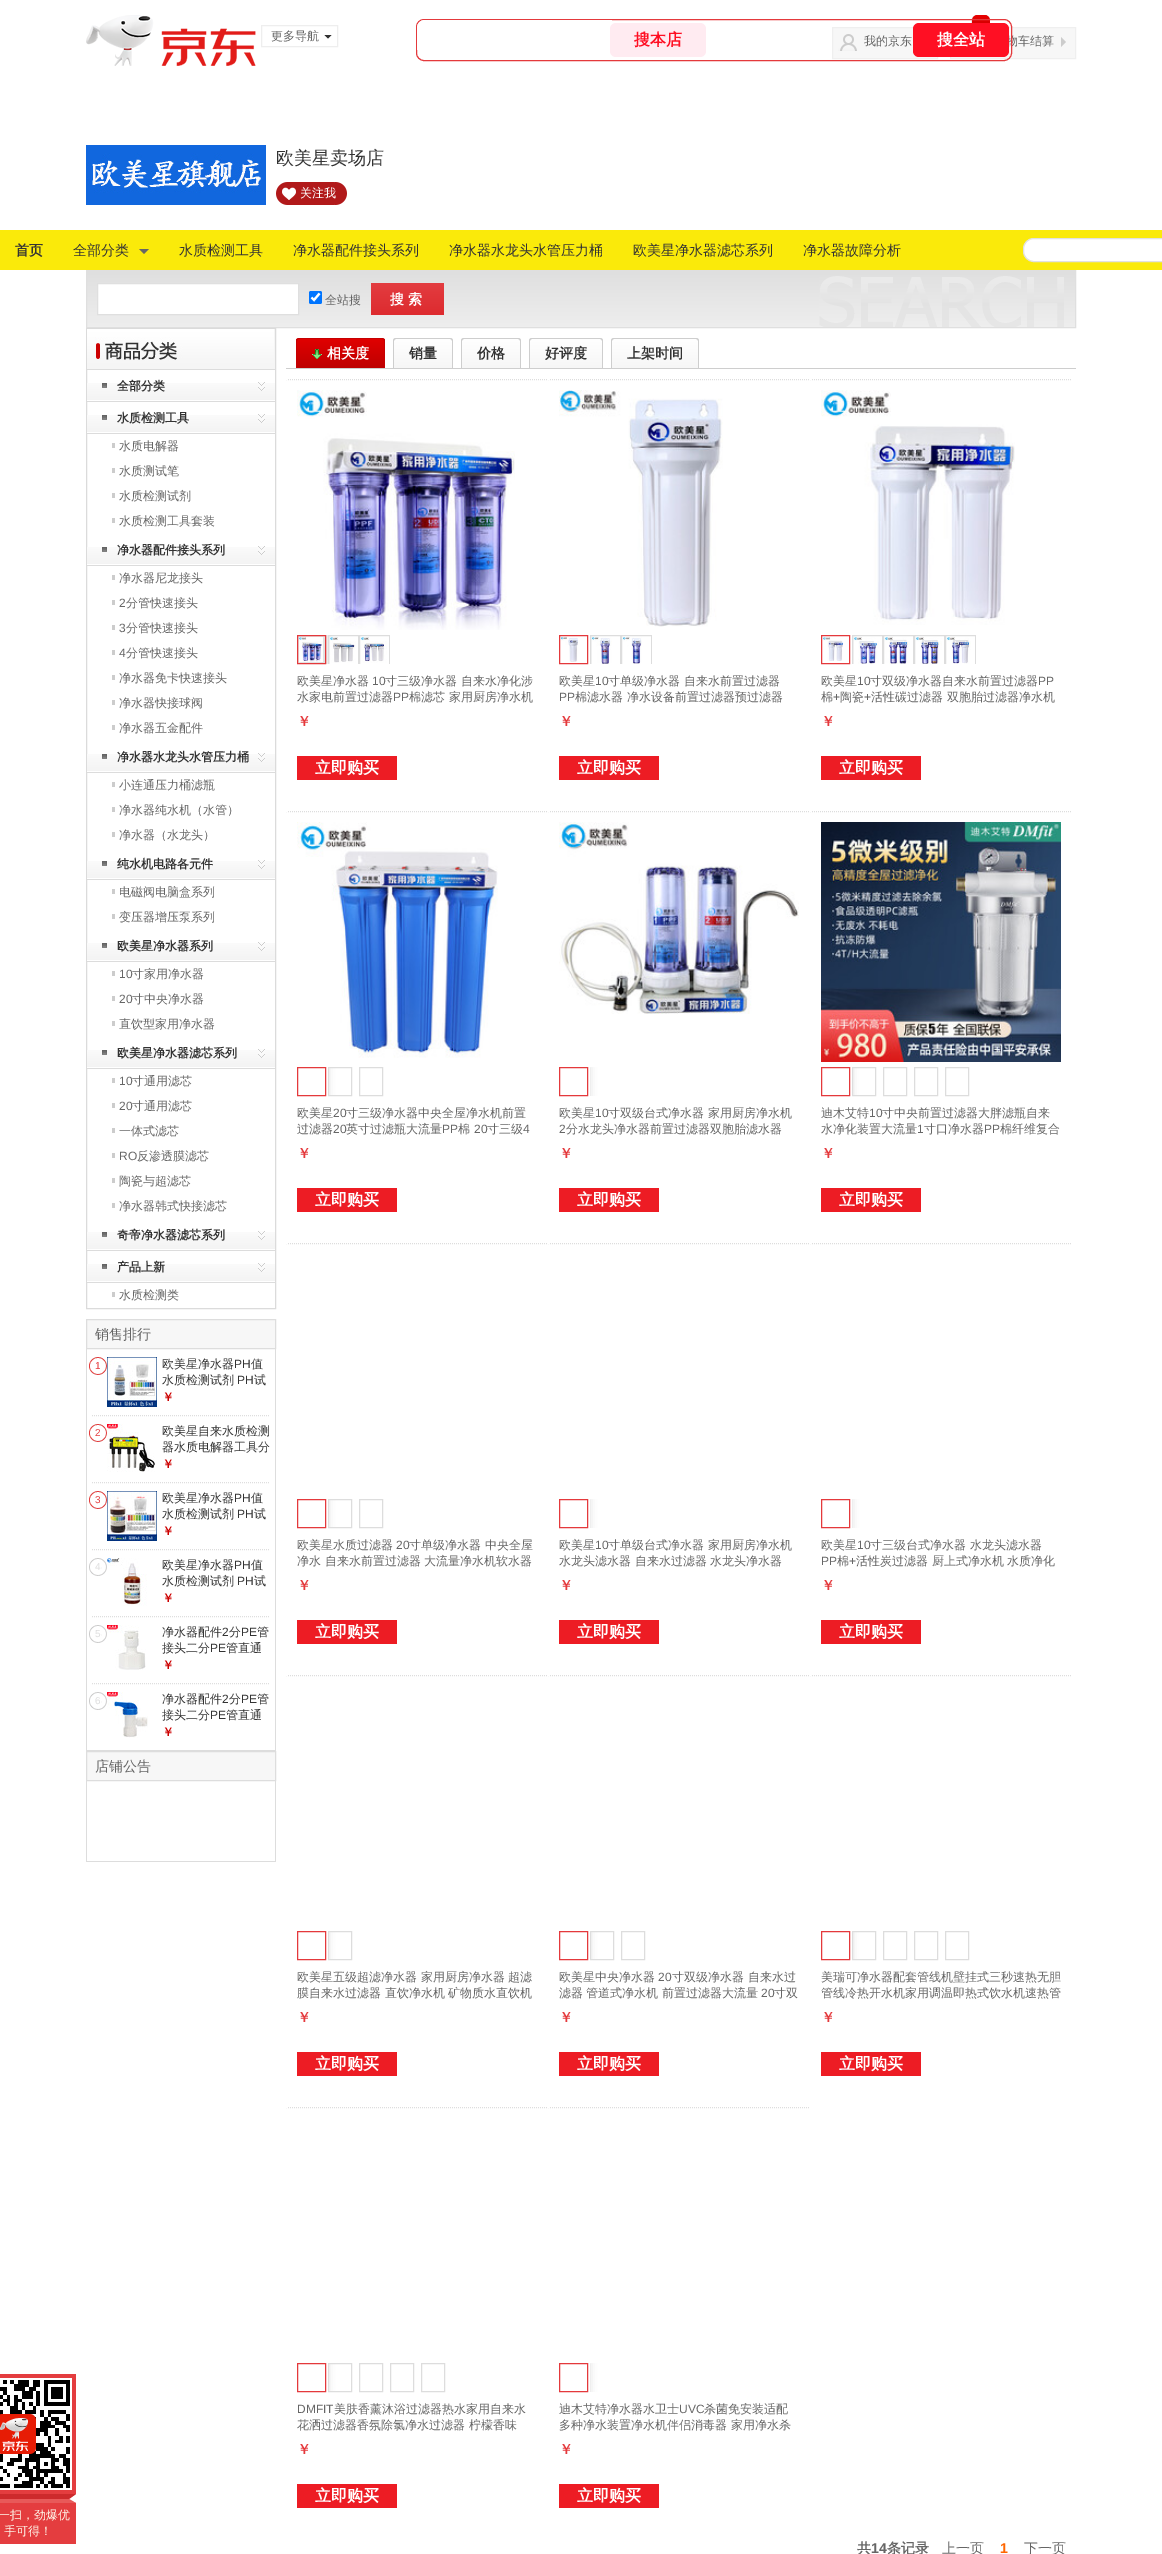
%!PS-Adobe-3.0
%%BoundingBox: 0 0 1162 2554
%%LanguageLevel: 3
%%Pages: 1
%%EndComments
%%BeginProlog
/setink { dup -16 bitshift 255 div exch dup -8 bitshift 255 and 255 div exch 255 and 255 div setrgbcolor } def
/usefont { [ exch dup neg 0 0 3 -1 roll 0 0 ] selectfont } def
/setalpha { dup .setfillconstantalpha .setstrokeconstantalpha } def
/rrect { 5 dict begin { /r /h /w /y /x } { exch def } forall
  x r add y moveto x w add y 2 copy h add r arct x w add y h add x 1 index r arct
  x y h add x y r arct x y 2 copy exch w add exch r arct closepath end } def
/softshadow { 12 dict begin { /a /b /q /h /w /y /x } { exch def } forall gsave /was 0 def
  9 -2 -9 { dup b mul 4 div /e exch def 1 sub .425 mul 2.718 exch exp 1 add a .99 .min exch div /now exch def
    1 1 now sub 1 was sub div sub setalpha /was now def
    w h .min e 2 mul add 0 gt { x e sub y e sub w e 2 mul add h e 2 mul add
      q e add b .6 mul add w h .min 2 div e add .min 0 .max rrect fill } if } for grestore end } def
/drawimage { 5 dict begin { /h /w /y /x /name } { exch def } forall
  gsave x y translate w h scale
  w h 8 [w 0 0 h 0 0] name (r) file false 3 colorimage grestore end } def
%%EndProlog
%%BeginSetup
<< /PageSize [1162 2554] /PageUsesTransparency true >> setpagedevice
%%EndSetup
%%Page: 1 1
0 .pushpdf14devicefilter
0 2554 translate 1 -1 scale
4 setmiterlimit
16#FFFFFF setink
0 0 1162 2554 rectfill
(img1.raw) 86 15 170 51 drawimage
16#EEEEEE setink
261.5 25.5 76 21 rectstroke
/WenQuanYiZenHei-Medium 12 usefont
16#666666 setink
271 40 moveto (更多导航) show
16#333333 setink
324 35 moveto 332 35 lineto 328 39 lineto closepath fill
16#FFFFFF setink
332 35 moveto 332 43 lineto 328 39 lineto closepath 324 43 moveto 324 35 lineto 328 39 lineto closepath fill
16#F7F7F7 setink
833 28 104 30 rectfill
(img2.raw) 838 34 19 17 drawimage
16#EFEFEF setink
832.5 27.5 105 31 rectstroke
16#F7F7F7 setink
950.5 27.5 moveto 1075.5 27.5 lineto 1075.5 58.5 lineto 950.5 58.5 lineto closepath gsave fill grestore
16#EFEFEF setink
stroke
(img3.raw) 971 15 19 8 drawimage
(img4.raw) 979 15 11 8 drawimage
16#666666 setink
1006 45 moveto (物车结算) show
16#E4393C setink
416.5 19.5 595 41 7.5 rrect stroke
16#FFFFFF setink
425 20 moveto 612 20 lineto 612 50 lineto 417 50 lineto 417 28 lineto 417 23.5 420.5 20 425 20 curveto closepath fill
16#FFEBF1 setink
610 23 96 34 6 rrect fill
/WenQuanYiZenHei-Bold 16 usefont
16#FF0F23 setink
634 45 moveto (搜本店) show
913 23 96 34 6 rrect fill
16#FFFFFF setink
937 45 moveto (搜全站) show
/WenQuanYiZenHei-Medium 12 usefont
16#666666 setink
864 45 moveto (我的京东) show
16#CCCCCC setink
1061 47 moveto 1061 37 lineto 1066 42 lineto closepath fill
(img5.raw) 86 145 180 60 drawimage
/WenQuanYiZenHei-Medium 18 usefont
16#333333 setink
276 164 moveto (欧美星卖场店) show
(img6.raw) 276 182 71 23 drawimage
/WenQuanYiZenHei-Medium 12 usefont
16#FFFFFF setink
300 197 moveto (关注我) show
16#FAEA0A setink
0 230 1162 40 rectfill
/WenQuanYiZenHei-Bold 14 usefont
16#333333 setink
15 255 moveto (首页) show
/WenQuanYiZenHei-Medium 14 usefont
73 255 moveto (全部分类) show
16#666666 setink
139 249 moveto 149 249 lineto 144 254 lineto closepath fill
16#333333 setink
[
    [(水质检测工具) 179 255]
    [(净水器配件接头系列) 293 255]
    [(净水器水龙头水管压力桶) 449 255]
    [(欧美星净水器滤芯系列) 633 255]
    [(净水器故障分析) 803 255]
] { aload pop moveto show } forall
16#FFFFFF setink
1034 238.5 moveto 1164.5 238.5 lineto 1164.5 261.5 lineto 1034 261.5 lineto 1028 261.5 1023.5 257 1023.5 251 curveto 1023.5 249 lineto 1023.5 243 1028 238.5 1034 238.5 curveto closepath gsave fill grestore
16#E1E1E1 setink
stroke
gsave 87 271 moveto 1075 271 lineto 1075 327 lineto 87 327 lineto closepath clip newpath
<< /ShadingType 2 /ColorSpace /DeviceRGB /Coords [87 271 87 327] /Extend [true true] /Function << /FunctionType 2 /Domain [0 1] /C0 [0.875 0.875 0.875] /C1 [0.933 0.933 0.933] /N 1 >> >> shfill grestore
16#DFDFDF setink
86.5 270.5 989 57 rectstroke
(img7.raw) 819 276 245 51 drawimage
16#FFFFFF setink
97.5 283.5 moveto 298.5 283.5 lineto 298.5 314.5 lineto 97.5 314.5 lineto closepath gsave fill grestore
16#DFDFDF setink
stroke
16#0075FF setink
309 291 13 13 2 rrect fill
16#FFFFFF setink
2.1 setlinewidth
311.5 297.5 moveto 314 300 lineto 319.5 293.5 lineto stroke
/WenQuanYiZenHei-Medium 12 usefont
16#666666 setink
325 304 moveto (全站搜) show
gsave 371 283 73 32 3 rrect clip newpath
<< /ShadingType 2 /ColorSpace /DeviceRGB /Coords [371 283 371 315] /Extend [true true] /Function << /FunctionType 2 /Domain [0 1] /C0 [0.89 0.235 0.251] /C1 [0.867 0.169 0.184] /N 1 >> >> shfill grestore
/WenQuanYiZenHei-Bold 14 usefont
16#FFFFFF setink
390 304 moveto 4 0 (搜索) ashow
16#DBDBDB setink
1 setlinewidth
86.5 328.5 189 980 rectstroke
(img8.raw) 87 329 188 41 drawimage
(img9.raw) 87 383 188 19 drawimage
(img10.raw) 102 383 5 5 drawimage
/WenQuanYiZenHei-Bold 12 usefont
16#333333 setink
117 390 moveto (全部分类) show
(img11.raw) 258 382 7 9 drawimage
(img9.raw) 87 415 188 19 drawimage
(img10.raw) 102 415 5 5 drawimage
117 422 moveto (水质检测工具) show
(img11.raw) 258 414 7 9 drawimage
16#CCCCCC setink
112 443 3 5 rectfill
/WenQuanYiZenHei-Medium 12 usefont
16#666666 setink
119 450 moveto (水质电解器) show
16#CCCCCC setink
112 468 3 5 rectfill
16#666666 setink
119 475 moveto (水质测试笔) show
16#CCCCCC setink
112 493 3 5 rectfill
16#666666 setink
119 500 moveto (水质检测试剂) show
16#CCCCCC setink
112 518 3 5 rectfill
16#666666 setink
119 525 moveto (水质检测工具套装) show
(img9.raw) 87 547 188 19 drawimage
(img10.raw) 102 547 5 5 drawimage
/WenQuanYiZenHei-Bold 12 usefont
16#333333 setink
117 554 moveto (净水器配件接头系列) show
(img11.raw) 258 546 7 9 drawimage
16#CCCCCC setink
112 575 3 5 rectfill
/WenQuanYiZenHei-Medium 12 usefont
16#666666 setink
119 582 moveto (净水器尼龙接头) show
16#CCCCCC setink
112 600 3 5 rectfill
/LiberationSans-Regular 12 usefont
16#666666 setink
119 607 moveto (2) show
/WenQuanYiZenHei-Medium 12 usefont
126 607 moveto (分管快速接头) show
16#CCCCCC setink
112 625 3 5 rectfill
/LiberationSans-Regular 12 usefont
16#666666 setink
119 632 moveto (3) show
/WenQuanYiZenHei-Medium 12 usefont
126 632 moveto (分管快速接头) show
16#CCCCCC setink
112 650 3 5 rectfill
/LiberationSans-Regular 12 usefont
16#666666 setink
119 657 moveto (4) show
/WenQuanYiZenHei-Medium 12 usefont
126 657 moveto (分管快速接头) show
16#CCCCCC setink
112 675 3 5 rectfill
16#666666 setink
119 682 moveto (净水器免卡快速接头) show
16#CCCCCC setink
112 700 3 5 rectfill
16#666666 setink
119 707 moveto (净水器快接球阀) show
16#CCCCCC setink
112 725 3 5 rectfill
16#666666 setink
119 732 moveto (净水器五金配件) show
(img9.raw) 87 754 188 19 drawimage
(img10.raw) 102 754 5 5 drawimage
/WenQuanYiZenHei-Bold 12 usefont
16#333333 setink
117 761 moveto (净水器水龙头水管压力桶) show
(img11.raw) 258 753 7 9 drawimage
16#CCCCCC setink
112 782 3 5 rectfill
/WenQuanYiZenHei-Medium 12 usefont
16#666666 setink
119 789 moveto (小连通压力桶滤瓶) show
16#CCCCCC setink
112 807 3 5 rectfill
16#666666 setink
119 814 moveto (净水器纯水机（水管）) show
16#CCCCCC setink
112 832 3 5 rectfill
16#666666 setink
119 839 moveto (净水器（水龙头）) show
(img9.raw) 87 861 188 19 drawimage
(img10.raw) 102 861 5 5 drawimage
/WenQuanYiZenHei-Bold 12 usefont
16#333333 setink
117 868 moveto (纯水机电路各元件) show
(img11.raw) 258 860 7 9 drawimage
16#CCCCCC setink
112 889 3 5 rectfill
/WenQuanYiZenHei-Medium 12 usefont
16#666666 setink
119 896 moveto (电磁阀电脑盒系列) show
16#CCCCCC setink
112 914 3 5 rectfill
16#666666 setink
119 921 moveto (变压器增压泵系列) show
(img9.raw) 87 943 188 19 drawimage
(img10.raw) 102 943 5 5 drawimage
/WenQuanYiZenHei-Bold 12 usefont
16#333333 setink
117 950 moveto (欧美星净水器系列) show
(img11.raw) 258 942 7 9 drawimage
16#CCCCCC setink
112 971 3 5 rectfill
/LiberationSans-Regular 12 usefont
16#666666 setink
119 978 moveto (10) show
/WenQuanYiZenHei-Medium 12 usefont
132 978 moveto (寸家用净水器) show
16#CCCCCC setink
112 996 3 5 rectfill
/LiberationSans-Regular 12 usefont
16#666666 setink
119 1003 moveto (20) show
/WenQuanYiZenHei-Medium 12 usefont
132 1003 moveto (寸中央净水器) show
16#CCCCCC setink
112 1021 3 5 rectfill
16#666666 setink
119 1028 moveto (直饮型家用净水器) show
(img9.raw) 87 1050 188 19 drawimage
(img10.raw) 102 1050 5 5 drawimage
/WenQuanYiZenHei-Bold 12 usefont
16#333333 setink
117 1057 moveto (欧美星净水器滤芯系列) show
(img11.raw) 258 1049 7 9 drawimage
16#CCCCCC setink
112 1078 3 5 rectfill
/LiberationSans-Regular 12 usefont
16#666666 setink
119 1085 moveto (10) show
/WenQuanYiZenHei-Medium 12 usefont
132 1085 moveto (寸通用滤芯) show
16#CCCCCC setink
112 1103 3 5 rectfill
/LiberationSans-Regular 12 usefont
16#666666 setink
119 1110 moveto (20) show
/WenQuanYiZenHei-Medium 12 usefont
132 1110 moveto (寸通用滤芯) show
16#CCCCCC setink
112 1128 3 5 rectfill
16#666666 setink
119 1135 moveto (一体式滤芯) show
16#CCCCCC setink
112 1153 3 5 rectfill
/LiberationSans-Regular 12 usefont
16#666666 setink
119 1160 moveto (RO) show
/WenQuanYiZenHei-Medium 12 usefont
137 1160 moveto (反渗透膜滤芯) show
16#CCCCCC setink
112 1178 3 5 rectfill
16#666666 setink
119 1185 moveto (陶瓷与超滤芯) show
16#CCCCCC setink
112 1203 3 5 rectfill
16#666666 setink
119 1210 moveto (净水器韩式快接滤芯) show
(img9.raw) 87 1232 188 19 drawimage
(img10.raw) 102 1232 5 5 drawimage
/WenQuanYiZenHei-Bold 12 usefont
16#333333 setink
117 1239 moveto (奇帝净水器滤芯系列) show
(img11.raw) 258 1231 7 9 drawimage
(img9.raw) 87 1264 188 19 drawimage
(img10.raw) 102 1264 5 5 drawimage
117 1271 moveto (产品上新) show
(img11.raw) 258 1263 7 9 drawimage
16#CCCCCC setink
112 1292 3 5 rectfill
/WenQuanYiZenHei-Medium 12 usefont
16#666666 setink
119 1299 moveto (水质检测类) show
[
    [275 1348 1 403 16#DDDDDD]
    [86 1750 190 1 16#DDDDDD]
    [86 1348 1 403 16#DDDDDD]
] { aload pop setink rectfill } forall
16#F7F7F7 setink
86.5 1319.5 moveto 275.5 1319.5 lineto 275.5 1348.5 lineto 86.5 1348.5 lineto closepath gsave fill grestore
16#DDDDDD setink
stroke
/WenQuanYiZenHei-Medium 14 usefont
16#666666 setink
95 1339 moveto (销售排行) show
(img12.raw) 89 1357 18 18 drawimage
/LiberationSans-Regular 10 usefont
16#E4393C setink
95 1369 moveto (1) show
(img13.raw) 107 1357 50 50 drawimage
/WenQuanYiZenHei-Medium 12 usefont
16#333333 setink
162 1368 moveto (欧美星净水器) show
/LiberationSans-Regular 12 usefont
234 1368 moveto (PH) show
/WenQuanYiZenHei-Medium 12 usefont
251 1368 moveto (值) show
162 1384 moveto (水质检测试剂) show
/LiberationSans-Regular 12 usefont
237 1384 moveto (PH) show
/WenQuanYiZenHei-Medium 12 usefont
254 1384 moveto (试) show
/WenQuanYiZenHei-Bold 12 usefont
16#CC0000 setink
162 1401 moveto (￥) show
16#DEDEDE setink
[1 1] 0 setdash
92 1415.5 moveto 270 1415.5 lineto stroke
(img12.raw) 89 1424 18 18 drawimage
/LiberationSans-Regular 10 usefont
16#E4393C setink
95 1436 moveto (2) show
(img14.raw) 107 1424 48 48 drawimage
/WenQuanYiZenHei-Medium 12 usefont
16#333333 setink
162 1435 moveto (欧美星自来水质检测) show
162 1451 moveto (器水质电解器工具分) show
/WenQuanYiZenHei-Bold 12 usefont
16#CC0000 setink
162 1468 moveto (￥) show
16#DEDEDE setink
92 1482.5 moveto 270 1482.5 lineto stroke
(img12.raw) 89 1491 18 18 drawimage
/LiberationSans-Regular 10 usefont
16#E4393C setink
95 1503 moveto (3) show
(img15.raw) 107 1491 50 50 drawimage
/WenQuanYiZenHei-Medium 12 usefont
16#333333 setink
162 1502 moveto (欧美星净水器) show
/LiberationSans-Regular 12 usefont
234 1502 moveto (PH) show
/WenQuanYiZenHei-Medium 12 usefont
251 1502 moveto (值) show
162 1518 moveto (水质检测试剂) show
/LiberationSans-Regular 12 usefont
237 1518 moveto (PH) show
/WenQuanYiZenHei-Medium 12 usefont
254 1518 moveto (试) show
/WenQuanYiZenHei-Bold 12 usefont
16#CC0000 setink
162 1535 moveto (￥) show
16#DEDEDE setink
92 1549.5 moveto 270 1549.5 lineto stroke
(img16.raw) 89 1558 18 18 drawimage
/LiberationSans-Regular 10 usefont
16#DDDDDD setink
95 1570 moveto (4) show
(img17.raw) 107 1558 40 48 drawimage
/WenQuanYiZenHei-Medium 12 usefont
16#333333 setink
162 1569 moveto (欧美星净水器) show
/LiberationSans-Regular 12 usefont
234 1569 moveto (PH) show
/WenQuanYiZenHei-Medium 12 usefont
251 1569 moveto (值) show
162 1585 moveto (水质检测试剂) show
/LiberationSans-Regular 12 usefont
237 1585 moveto (PH) show
/WenQuanYiZenHei-Medium 12 usefont
254 1585 moveto (试) show
/WenQuanYiZenHei-Bold 12 usefont
16#CC0000 setink
162 1602 moveto (￥) show
16#DEDEDE setink
92 1616.5 moveto 270 1616.5 lineto stroke
(img16.raw) 89 1625 18 18 drawimage
/LiberationSans-Regular 10 usefont
16#DDDDDD setink
95 1637 moveto (5) show
(img18.raw) 107 1625 39 45 drawimage
/WenQuanYiZenHei-Medium 12 usefont
16#333333 setink
162 1636 moveto (净水器配件) show
/LiberationSans-Regular 12 usefont
222 1636 moveto (2) show
/WenQuanYiZenHei-Medium 12 usefont
229 1636 moveto (分) show
/LiberationSans-Regular 12 usefont
241 1636 moveto (PE) show
/WenQuanYiZenHei-Medium 12 usefont
257 1636 moveto (管) show
162 1652 moveto (接头二分) show
/LiberationSans-Regular 12 usefont
210 1652 moveto (PE) show
/WenQuanYiZenHei-Medium 12 usefont
226 1652 moveto (管直通) show
/WenQuanYiZenHei-Bold 12 usefont
16#CC0000 setink
162 1669 moveto (￥) show
16#DEDEDE setink
92 1683.5 moveto 270 1683.5 lineto stroke
(img16.raw) 89 1692 18 18 drawimage
/LiberationSans-Regular 10 usefont
16#DDDDDD setink
95 1704 moveto (6) show
(img19.raw) 107 1692 41 46 drawimage
/WenQuanYiZenHei-Medium 12 usefont
16#333333 setink
162 1703 moveto (净水器配件) show
/LiberationSans-Regular 12 usefont
222 1703 moveto (2) show
/WenQuanYiZenHei-Medium 12 usefont
229 1703 moveto (分) show
/LiberationSans-Regular 12 usefont
241 1703 moveto (PE) show
/WenQuanYiZenHei-Medium 12 usefont
257 1703 moveto (管) show
162 1719 moveto (接头二分) show
/LiberationSans-Regular 12 usefont
210 1719 moveto (PE) show
/WenQuanYiZenHei-Medium 12 usefont
226 1719 moveto (管直通) show
/WenQuanYiZenHei-Bold 12 usefont
16#CC0000 setink
162 1736 moveto (￥) show
16#F7F7F7 setink
86.5 1751.5 moveto 275.5 1751.5 lineto 275.5 1780.5 lineto 86.5 1780.5 lineto closepath gsave fill grestore
16#DDDDDD setink
[] 0 setdash
stroke
/WenQuanYiZenHei-Medium 14 usefont
16#666666 setink
95 1771 moveto (店铺公告) show
[
    [275 1781 1 81 16#DDDDDD]
    [86 1861 190 1 16#DDDDDD]
    [86 1781 1 81 16#DDDDDD]
    [286 368 790 1 16#CECECE]
] { aload pop setink rectfill } forall
gsave
299 338 moveto 382 338 lineto 383.5 338 385 339.5 385 341 curveto 385 368 lineto 296 368 lineto 296 341 lineto 296 339.5 297.5 338 299 338 curveto closepath clip newpath
gsave 296 339 moveto 385 339 lineto 385 368 lineto 296 368 lineto closepath clip newpath
<< /ShadingType 2 /ColorSpace /DeviceRGB /Coords [297 339 297 368] /Extend [true true] /Function << /FunctionType 2 /Domain [0 1] /C0 [0.878 0 0] /C1 [0.745 0 0] /N 1 >> >> shfill grestore
grestore
16#C60001 setink
299 338 moveto 382 338 lineto 384 338 385 339 385 341 curveto 385 368 lineto 296 368 lineto 296 341 lineto 296 339 297 338 299 338 curveto closepath 299 339 moveto 382 339 lineto 383 339 384 340 384 341 curveto 384 368 lineto 297 368 lineto 297 341 lineto 297 340 298 339 299 339 curveto closepath eofill
(img20.raw) 312 349 10 10 drawimage
/WenQuanYiZenHei-Bold 14 usefont
16#FFFFFF setink
327 358 moveto (相关度) show
gsave
396 338 moveto 450 338 lineto 451.5 338 453 339.5 453 341 curveto 453 368 lineto 393 368 lineto 393 341 lineto 393 339.5 394.5 338 396 338 curveto closepath clip newpath
gsave 393 339 moveto 453 339 lineto 453 368 lineto 393 368 lineto closepath clip newpath
<< /ShadingType 2 /ColorSpace /DeviceRGB /Coords [394 339 394 368] /Extend [true true] /Function << /FunctionType 2 /Domain [0 1] /C0 [1 1 1] /C1 [0.965 0.965 0.965] /N 1 >> >> shfill grestore
grestore
16#CECECE setink
396 338 moveto 450 338 lineto 452 338 453 339 453 341 curveto 453 368 lineto 393 368 lineto 393 341 lineto 393 339 394 338 396 338 curveto closepath 396 339 moveto 450 339 lineto 451 339 452 340 452 341 curveto 452 368 lineto 394 368 lineto 394 341 lineto 394 340 395 339 396 339 curveto closepath eofill
16#333333 setink
409 358 moveto (销量) show
gsave
464 338 moveto 518 338 lineto 519.5 338 521 339.5 521 341 curveto 521 368 lineto 461 368 lineto 461 341 lineto 461 339.5 462.5 338 464 338 curveto closepath clip newpath
gsave 461 339 moveto 521 339 lineto 521 368 lineto 461 368 lineto closepath clip newpath
<< /ShadingType 2 /ColorSpace /DeviceRGB /Coords [462 339 462 368] /Extend [true true] /Function << /FunctionType 2 /Domain [0 1] /C0 [1 1 1] /C1 [0.965 0.965 0.965] /N 1 >> >> shfill grestore
grestore
16#CECECE setink
464 338 moveto 518 338 lineto 520 338 521 339 521 341 curveto 521 368 lineto 461 368 lineto 461 341 lineto 461 339 462 338 464 338 curveto closepath 464 339 moveto 518 339 lineto 519 339 520 340 520 341 curveto 520 368 lineto 462 368 lineto 462 341 lineto 462 340 463 339 464 339 curveto closepath eofill
16#333333 setink
477 358 moveto (价格) show
gsave
532 338 moveto 600 338 lineto 601.5 338 603 339.5 603 341 curveto 603 368 lineto 529 368 lineto 529 341 lineto 529 339.5 530.5 338 532 338 curveto closepath clip newpath
gsave 529 339 moveto 603 339 lineto 603 368 lineto 529 368 lineto closepath clip newpath
<< /ShadingType 2 /ColorSpace /DeviceRGB /Coords [530 339 530 368] /Extend [true true] /Function << /FunctionType 2 /Domain [0 1] /C0 [1 1 1] /C1 [0.965 0.965 0.965] /N 1 >> >> shfill grestore
grestore
16#CECECE setink
532 338 moveto 600 338 lineto 602 338 603 339 603 341 curveto 603 368 lineto 529 368 lineto 529 341 lineto 529 339 530 338 532 338 curveto closepath 532 339 moveto 600 339 lineto 601 339 602 340 602 341 curveto 602 368 lineto 530 368 lineto 530 341 lineto 530 340 531 339 532 339 curveto closepath eofill
16#333333 setink
545 358 moveto (好评度) show
gsave
614 338 moveto 696 338 lineto 697.5 338 699 339.5 699 341 curveto 699 368 lineto 611 368 lineto 611 341 lineto 611 339.5 612.5 338 614 338 curveto closepath clip newpath
gsave 611 339 moveto 699 339 lineto 699 368 lineto 611 368 lineto closepath clip newpath
<< /ShadingType 2 /ColorSpace /DeviceRGB /Coords [612 339 612 368] /Extend [true true] /Function << /FunctionType 2 /Domain [0 1] /C0 [1 1 1] /C1 [0.965 0.965 0.965] /N 1 >> >> shfill grestore
grestore
16#CECECE setink
614 338 moveto 696 338 lineto 698 338 699 339 699 341 curveto 699 368 lineto 611 368 lineto 611 341 lineto 611 339 612 338 614 338 curveto closepath 614 339 moveto 696 339 lineto 697 339 698 340 698 341 curveto 698 368 lineto 612 368 lineto 612 341 lineto 612 340 613 339 614 339 curveto closepath eofill
16#333333 setink
627 358 moveto (上架时间) show
16#DDDDDD setink
[1 1] 0 setdash
286 379.5 moveto 548 379.5 lineto stroke
16#FFFFFF setink
286.5 379 moveto 286.5 791 lineto stroke
(img21.raw) 297 390 218 240 drawimage
gsave
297 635 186 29 rectclip
16#DDDDDD setink
297 635 31 31 0 4 1 softshadow
grestore
16#E4393C setink
[] 0 setdash
297.5 635.5 28 28 rectstroke
(img22.raw) 299 637 24 25 drawimage
gsave
328 635 31 29 rectclip
16#DDDDDD setink
328.5 635.5 30 30 rectstroke
grestore
(img23.raw) 330 637 26 27 drawimage
gsave
359 635 31 29 rectclip
16#DDDDDD setink
359.5 635.5 30 30 rectstroke
grestore
(img24.raw) 361 637 26 26 drawimage
/WenQuanYiZenHei-Medium 12 usefont
16#666666 setink
297 685 moveto (欧美星净水器) show
/LiberationSans-Regular 12 usefont
372 685 moveto (10) show
/WenQuanYiZenHei-Medium 12 usefont
385 685 moveto (寸三级净水器 自来水净化涉) show
297 701 moveto (水家电前置过滤器) show
/LiberationSans-Regular 12 usefont
393 701 moveto (PP) show
/WenQuanYiZenHei-Medium 12 usefont
409 701 moveto (棉滤芯 家用厨房净水机) show
/WenQuanYiZenHei-Bold 14 usefont
16#E4393C setink
297 726 moveto (￥) show
16#ED1C24 setink
297 756 100 24 rectfill
/WenQuanYiZenHei-Bold 16 usefont
16#FFFFFF setink
315 773 moveto (立即购买) show
16#DDDDDD setink
[1 1] 0 setdash
548 379.5 moveto 810 379.5 lineto stroke
16#FFFFFF setink
548.5 379 moveto 548.5 791 lineto stroke
(img25.raw) 559 390 164 237 drawimage
gsave
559 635 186 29 rectclip
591 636 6 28 rectclip
16#DDDDDD setink
559 635 31 31 0 4 1 softshadow
grestore
16#E4393C setink
[] 0 setdash
559.5 635.5 28 28 rectstroke
(img26.raw) 561 637 17 25 drawimage
gsave
590 635 31 29 rectclip
16#DDDDDD setink
590.5 635.5 30 30 rectstroke
grestore
(img27.raw) 592 637 20 27 drawimage
gsave
621 635 31 29 rectclip
16#DDDDDD setink
621.5 635.5 30 30 rectstroke
grestore
(img28.raw) 623 637 19 27 drawimage
/WenQuanYiZenHei-Medium 12 usefont
16#666666 setink
559 685 moveto (欧美星) show
/LiberationSans-Regular 12 usefont
595 685 moveto (10) show
/WenQuanYiZenHei-Medium 12 usefont
608 685 moveto (寸单级净水器 自来水前置过滤器) show
/LiberationSans-Regular 12 usefont
559 701 moveto (PP) show
/WenQuanYiZenHei-Medium 12 usefont
575 701 moveto (棉滤水器 净水设备前置过滤器预过滤器) show
/WenQuanYiZenHei-Bold 14 usefont
16#E4393C setink
559 726 moveto (￥) show
16#ED1C24 setink
559 756 100 24 rectfill
/WenQuanYiZenHei-Bold 16 usefont
16#FFFFFF setink
577 773 moveto (立即购买) show
16#DDDDDD setink
[1 1] 0 setdash
810 379.5 moveto 1072 379.5 lineto stroke
16#FFFFFF setink
810.5 379 moveto 810.5 791 lineto stroke
(img29.raw) 821 390 194 235 drawimage
gsave
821 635 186 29 rectclip
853 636 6 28 rectclip
16#DDDDDD setink
821 635 31 31 0 4 1 softshadow
grestore
16#E4393C setink
[] 0 setdash
821.5 635.5 28 28 rectstroke
(img30.raw) 823 637 20 24 drawimage
gsave
852 635 31 29 rectclip
16#DDDDDD setink
852.5 635.5 30 30 rectstroke
grestore
(img31.raw) 854 637 25 27 drawimage
gsave
883 635 31 29 rectclip
16#DDDDDD setink
883.5 635.5 30 30 rectstroke
grestore
(img32.raw) 885 637 25 27 drawimage
gsave
914 635 31 29 rectclip
16#DDDDDD setink
914.5 635.5 30 30 rectstroke
grestore
(img33.raw) 916 637 26 27 drawimage
gsave
945 635 31 29 rectclip
16#DDDDDD setink
945.5 635.5 30 30 rectstroke
grestore
(img34.raw) 947 637 24 27 drawimage
/WenQuanYiZenHei-Medium 12 usefont
16#666666 setink
821 685 moveto (欧美星) show
/LiberationSans-Regular 12 usefont
857 685 moveto (10) show
/WenQuanYiZenHei-Medium 12 usefont
870 685 moveto (寸双级净水器自来水前置过滤器) show
/LiberationSans-Regular 12 usefont
1038 685 moveto (PP) show
/WenQuanYiZenHei-Medium 12 usefont
821 701 moveto (棉) show
/LiberationSans-Regular 12 usefont
833 701 moveto (+) show
/WenQuanYiZenHei-Medium 12 usefont
840 701 moveto (陶瓷) show
/LiberationSans-Regular 12 usefont
864 701 moveto (+) show
/WenQuanYiZenHei-Medium 12 usefont
871 701 moveto (活性碳过滤器 双胞胎过滤器净水机) show
/WenQuanYiZenHei-Bold 14 usefont
16#E4393C setink
821 726 moveto (￥) show
16#ED1C24 setink
821 756 100 24 rectfill
/WenQuanYiZenHei-Bold 16 usefont
16#FFFFFF setink
839 773 moveto (立即购买) show
16#DDDDDD setink
[1 1] 0 setdash
286 811.5 moveto 548 811.5 lineto stroke
16#FFFFFF setink
286.5 811 moveto 286.5 1223 lineto stroke
(img35.raw) 297 822 201 236 drawimage
gsave
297 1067 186 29 rectclip
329 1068 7 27 rectclip
16#DDDDDD setink
297 1067 31 31 0 4 1 softshadow
grestore
16#E4393C setink
[] 0 setdash
297.5 1067.5 28 28 rectstroke
16#DDDDDD setink
328.5 1067.5 23 28 rectstroke
359.5 1067.5 23 28 rectstroke
/WenQuanYiZenHei-Medium 12 usefont
16#666666 setink
297 1117 moveto (欧美星) show
/LiberationSans-Regular 12 usefont
333 1117 moveto (20) show
/WenQuanYiZenHei-Medium 12 usefont
346 1117 moveto (寸三级净水器中央全屋净水机前置) show
297 1133 moveto (过滤器) show
/LiberationSans-Regular 12 usefont
333 1133 moveto (20) show
/WenQuanYiZenHei-Medium 12 usefont
346 1133 moveto (英寸过滤瓶大流量) show
/LiberationSans-Regular 12 usefont
442 1133 moveto (PP) show
/WenQuanYiZenHei-Medium 12 usefont
458 1133 moveto (棉) show
/LiberationSans-Regular 12 usefont
474 1133 moveto (20) show
/WenQuanYiZenHei-Medium 12 usefont
487 1133 moveto (寸三级) show
/LiberationSans-Regular 12 usefont
523 1133 moveto (4) show
/WenQuanYiZenHei-Bold 14 usefont
16#E4393C setink
297 1158 moveto (￥) show
16#ED1C24 setink
297 1188 100 24 rectfill
/WenQuanYiZenHei-Bold 16 usefont
16#FFFFFF setink
315 1205 moveto (立即购买) show
16#DDDDDD setink
[1 1] 0 setdash
548 811.5 moveto 810 811.5 lineto stroke
16#FFFFFF setink
548.5 811 moveto 548.5 1223 lineto stroke
(img36.raw) 559 822 240 192 drawimage
gsave
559 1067 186 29 rectclip
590 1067 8 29 rectclip
16#DDDDDD setink
559 1067 31 31 0 4 1 softshadow
grestore
16#E4393C setink
[] 0 setdash
559.5 1067.5 28 28 rectstroke
/WenQuanYiZenHei-Medium 12 usefont
16#666666 setink
559 1117 moveto (欧美星) show
/LiberationSans-Regular 12 usefont
595 1117 moveto (10) show
/WenQuanYiZenHei-Medium 12 usefont
608 1117 moveto (寸双级台式净水器 家用厨房净水机) show
/LiberationSans-Regular 12 usefont
559 1133 moveto (2) show
/WenQuanYiZenHei-Medium 12 usefont
566 1133 moveto (分水龙头净水器前置过滤器双胞胎滤水器) show
/WenQuanYiZenHei-Bold 14 usefont
16#E4393C setink
559 1158 moveto (￥) show
16#ED1C24 setink
559 1188 100 24 rectfill
/WenQuanYiZenHei-Bold 16 usefont
16#FFFFFF setink
577 1205 moveto (立即购买) show
16#DDDDDD setink
[1 1] 0 setdash
810 811.5 moveto 1072 811.5 lineto stroke
16#FFFFFF setink
810.5 811 moveto 810.5 1223 lineto stroke
(img37.raw) 821 822 240 240 drawimage
gsave
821 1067 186 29 rectclip
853 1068 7 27 rectclip
16#DDDDDD setink
821 1067 31 31 0 4 1 softshadow
grestore
16#E4393C setink
[] 0 setdash
821.5 1067.5 28 28 rectstroke
16#DDDDDD setink
852.5 1067.5 23 28 rectstroke
883.5 1067.5 23 28 rectstroke
914.5 1067.5 23 28 rectstroke
945.5 1067.5 23 28 rectstroke
/WenQuanYiZenHei-Medium 12 usefont
16#666666 setink
821 1117 moveto (迪木艾特) show
/LiberationSans-Regular 12 usefont
869 1117 moveto (10) show
/WenQuanYiZenHei-Medium 12 usefont
882 1117 moveto (寸中央前置过滤器大胖滤瓶自来) show
821 1133 moveto (水净化装置大流量) show
/LiberationSans-Regular 12 usefont
917 1133 moveto (1) show
/WenQuanYiZenHei-Medium 12 usefont
924 1133 moveto (寸口净水器) show
/LiberationSans-Regular 12 usefont
984 1133 moveto (PP) show
/WenQuanYiZenHei-Medium 12 usefont
1000 1133 moveto (棉纤维复合) show
/WenQuanYiZenHei-Bold 14 usefont
16#E4393C setink
821 1158 moveto (￥) show
16#ED1C24 setink
821 1188 100 24 rectfill
/WenQuanYiZenHei-Bold 16 usefont
16#FFFFFF setink
839 1205 moveto (立即购买) show
16#DDDDDD setink
[1 1] 0 setdash
286 1243.5 moveto 548 1243.5 lineto stroke
16#FFFFFF setink
286.5 1243 moveto 286.5 1655 lineto stroke
gsave
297 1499 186 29 rectclip
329 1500 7 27 rectclip
16#DDDDDD setink
297 1499 31 31 0 4 1 softshadow
grestore
16#E4393C setink
[] 0 setdash
297.5 1499.5 28 28 rectstroke
16#DDDDDD setink
328.5 1499.5 23 28 rectstroke
359.5 1499.5 23 28 rectstroke
/WenQuanYiZenHei-Medium 12 usefont
16#666666 setink
297 1549 moveto (欧美星水质过滤器) show
/LiberationSans-Regular 12 usefont
396 1549 moveto (20) show
/WenQuanYiZenHei-Medium 12 usefont
409 1549 moveto (寸单级净水器 中央全屋) show
297 1565 moveto (净水 自来水前置过滤器 大流量净水机软水器) show
/WenQuanYiZenHei-Bold 14 usefont
16#E4393C setink
297 1590 moveto (￥) show
16#ED1C24 setink
297 1620 100 24 rectfill
/WenQuanYiZenHei-Bold 16 usefont
16#FFFFFF setink
315 1637 moveto (立即购买) show
16#DDDDDD setink
[1 1] 0 setdash
548 1243.5 moveto 810 1243.5 lineto stroke
16#FFFFFF setink
548.5 1243 moveto 548.5 1655 lineto stroke
gsave
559 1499 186 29 rectclip
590 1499 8 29 rectclip
16#DDDDDD setink
559 1499 31 31 0 4 1 softshadow
grestore
16#E4393C setink
[] 0 setdash
559.5 1499.5 28 28 rectstroke
/WenQuanYiZenHei-Medium 12 usefont
16#666666 setink
559 1549 moveto (欧美星) show
/LiberationSans-Regular 12 usefont
595 1549 moveto (10) show
/WenQuanYiZenHei-Medium 12 usefont
608 1549 moveto (寸单级台式净水器 家用厨房净水机) show
559 1565 moveto (水龙头滤水器 自来水过滤器 水龙头净水器) show
/WenQuanYiZenHei-Bold 14 usefont
16#E4393C setink
559 1590 moveto (￥) show
16#ED1C24 setink
559 1620 100 24 rectfill
/WenQuanYiZenHei-Bold 16 usefont
16#FFFFFF setink
577 1637 moveto (立即购买) show
16#DDDDDD setink
[1 1] 0 setdash
810 1243.5 moveto 1072 1243.5 lineto stroke
16#FFFFFF setink
810.5 1243 moveto 810.5 1655 lineto stroke
gsave
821 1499 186 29 rectclip
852 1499 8 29 rectclip
16#DDDDDD setink
821 1499 31 31 0 4 1 softshadow
grestore
16#E4393C setink
[] 0 setdash
821.5 1499.5 28 28 rectstroke
/WenQuanYiZenHei-Medium 12 usefont
16#666666 setink
821 1549 moveto (欧美星) show
/LiberationSans-Regular 12 usefont
857 1549 moveto (10) show
/WenQuanYiZenHei-Medium 12 usefont
870 1549 moveto (寸三级台式净水器 水龙头滤水器) show
/LiberationSans-Regular 12 usefont
821 1565 moveto (PP) show
/WenQuanYiZenHei-Medium 12 usefont
837 1565 moveto (棉) show
/LiberationSans-Regular 12 usefont
849 1565 moveto (+) show
/WenQuanYiZenHei-Medium 12 usefont
856 1565 moveto (活性炭过滤器 厨上式净水机 水质净化) show
/WenQuanYiZenHei-Bold 14 usefont
16#E4393C setink
821 1590 moveto (￥) show
16#ED1C24 setink
821 1620 100 24 rectfill
/WenQuanYiZenHei-Bold 16 usefont
16#FFFFFF setink
839 1637 moveto (立即购买) show
16#DDDDDD setink
[1 1] 0 setdash
286 1675.5 moveto 548 1675.5 lineto stroke
16#FFFFFF setink
286.5 1675 moveto 286.5 2087 lineto stroke
gsave
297 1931 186 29 rectclip
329 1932 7 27 rectclip
16#DDDDDD setink
297 1931 31 31 0 4 1 softshadow
grestore
16#E4393C setink
[] 0 setdash
297.5 1931.5 28 28 rectstroke
16#DDDDDD setink
328.5 1931.5 23 28 rectstroke
/WenQuanYiZenHei-Medium 12 usefont
16#666666 setink
297 1981 moveto (欧美星五级超滤净水器 家用厨房净水器 超滤) show
297 1997 moveto (膜自来水过滤器 直饮净水机 矿物质水直饮机) show
/WenQuanYiZenHei-Bold 14 usefont
16#E4393C setink
297 2022 moveto (￥) show
16#ED1C24 setink
297 2052 100 24 rectfill
/WenQuanYiZenHei-Bold 16 usefont
16#FFFFFF setink
315 2069 moveto (立即购买) show
16#DDDDDD setink
[1 1] 0 setdash
548 1675.5 moveto 810 1675.5 lineto stroke
16#FFFFFF setink
548.5 1675 moveto 548.5 2087 lineto stroke
gsave
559 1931 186 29 rectclip
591 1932 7 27 rectclip
16#DDDDDD setink
559 1931 31 31 0 4 1 softshadow
grestore
16#E4393C setink
[] 0 setdash
559.5 1931.5 28 28 rectstroke
16#DDDDDD setink
590.5 1931.5 23 28 rectstroke
621.5 1931.5 23 28 rectstroke
/WenQuanYiZenHei-Medium 12 usefont
16#666666 setink
559 1981 moveto (欧美星中央净水器) show
/LiberationSans-Regular 12 usefont
658 1981 moveto (20) show
/WenQuanYiZenHei-Medium 12 usefont
[
    [(寸双级净水器 自来水过) 672 1981]
    [(滤器) 559 1997]
    [(管道式净水机 前置过滤器大流量) 586 1997]
] { aload pop moveto show } forall
/LiberationSans-Regular 12 usefont
761 1997 moveto (20) show
/WenQuanYiZenHei-Medium 12 usefont
774 1997 moveto (寸双) show
/WenQuanYiZenHei-Bold 14 usefont
16#E4393C setink
559 2022 moveto (￥) show
16#ED1C24 setink
559 2052 100 24 rectfill
/WenQuanYiZenHei-Bold 16 usefont
16#FFFFFF setink
577 2069 moveto (立即购买) show
16#DDDDDD setink
[1 1] 0 setdash
810 1675.5 moveto 1072 1675.5 lineto stroke
16#FFFFFF setink
810.5 1675 moveto 810.5 2087 lineto stroke
gsave
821 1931 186 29 rectclip
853 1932 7 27 rectclip
16#DDDDDD setink
821 1931 31 31 0 4 1 softshadow
grestore
16#E4393C setink
[] 0 setdash
821.5 1931.5 28 28 rectstroke
16#DDDDDD setink
852.5 1931.5 23 28 rectstroke
883.5 1931.5 23 28 rectstroke
914.5 1931.5 23 28 rectstroke
945.5 1931.5 23 28 rectstroke
/WenQuanYiZenHei-Medium 12 usefont
16#666666 setink
821 1981 moveto (美瑞可净水器配套管线机壁挂式三秒速热无胆) show
821 1997 moveto (管线冷热开水机家用调温即热式饮水机速热管) show
/WenQuanYiZenHei-Bold 14 usefont
16#E4393C setink
821 2022 moveto (￥) show
16#ED1C24 setink
821 2052 100 24 rectfill
/WenQuanYiZenHei-Bold 16 usefont
16#FFFFFF setink
839 2069 moveto (立即购买) show
16#DDDDDD setink
[1 1] 0 setdash
286 2107.5 moveto 548 2107.5 lineto stroke
16#FFFFFF setink
286.5 2107 moveto 286.5 2519 lineto stroke
gsave
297 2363 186 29 rectclip
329 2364 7 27 rectclip
16#DDDDDD setink
297 2363 31 31 0 4 1 softshadow
grestore
16#E4393C setink
[] 0 setdash
297.5 2363.5 28 28 rectstroke
16#DDDDDD setink
328.5 2363.5 23 28 rectstroke
359.5 2363.5 23 28 rectstroke
390.5 2363.5 23 28 rectstroke
421.5 2363.5 23 28 rectstroke
/LiberationSans-Regular 12 usefont
16#666666 setink
297 2413 moveto (DMFIT) show
/WenQuanYiZenHei-Medium 12 usefont
334 2413 moveto (美肤香薰沐浴过滤器热水家用自来水) show
297 2429 moveto (花洒过滤器香氛除氯净水过滤器 柠檬香味) show
/WenQuanYiZenHei-Bold 14 usefont
16#E4393C setink
297 2454 moveto (￥) show
16#ED1C24 setink
297 2484 100 24 rectfill
/WenQuanYiZenHei-Bold 16 usefont
16#FFFFFF setink
315 2501 moveto (立即购买) show
16#DDDDDD setink
[1 1] 0 setdash
548 2107.5 moveto 810 2107.5 lineto stroke
16#FFFFFF setink
548.5 2107 moveto 548.5 2519 lineto stroke
gsave
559 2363 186 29 rectclip
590 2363 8 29 rectclip
16#DDDDDD setink
559 2363 31 31 0 4 1 softshadow
grestore
16#E4393C setink
[] 0 setdash
559.5 2363.5 28 28 rectstroke
/WenQuanYiZenHei-Medium 12 usefont
16#666666 setink
559 2413 moveto (迪木艾特净水器水卫士) show
/LiberationSans-Regular 12 usefont
679 2413 moveto (UVC) show
/WenQuanYiZenHei-Medium 12 usefont
704 2413 moveto (杀菌免安装适配) show
559 2429 moveto (多种净水装置净水机伴侣消毒器 家用净水杀) show
/WenQuanYiZenHei-Bold 14 usefont
16#E4393C setink
559 2454 moveto (￥) show
16#ED1C24 setink
559 2484 100 24 rectfill
/WenQuanYiZenHei-Bold 16 usefont
16#FFFFFF setink
577 2501 moveto (立即购买) show
/WenQuanYiZenHei-Bold 14 usefont
16#666666 setink
857 2553 moveto (共) show
/LiberationSans-Bold 14 usefont
871 2553 moveto (14) show
/WenQuanYiZenHei-Bold 14 usefont
887 2553 moveto (条记录) show
/WenQuanYiZenHei-Medium 14 usefont
942 2553 moveto (上一页) show
/LiberationSans-Bold 14 usefont
16#FF6600 setink
1000 2553 moveto (1) show
/WenQuanYiZenHei-Medium 14 usefont
16#666666 setink
1024 2553 moveto (下一页) show
16#E43D3F setink
0 2374 76 120 rectfill
(img38.raw) 0 2378 72 112 drawimage
(img39.raw) 0 2494 76 9 drawimage
0 2503 76 41 rectfill
/WenQuanYiZenHei-Medium 12 usefont
16#FFFBEE setink
-2 2519 moveto (一扫，劲爆优) show
4 2535 moveto (手可得！) show
.poppdf14devicefilter showpage
%%EOF
